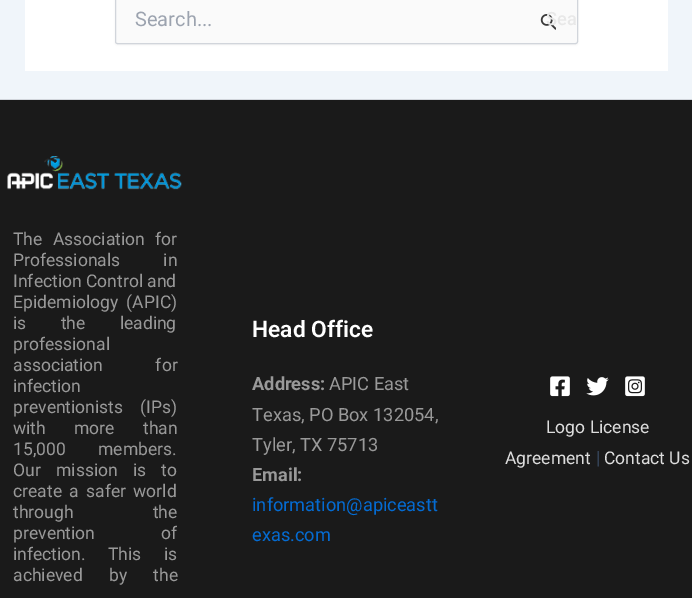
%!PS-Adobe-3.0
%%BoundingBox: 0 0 692 598
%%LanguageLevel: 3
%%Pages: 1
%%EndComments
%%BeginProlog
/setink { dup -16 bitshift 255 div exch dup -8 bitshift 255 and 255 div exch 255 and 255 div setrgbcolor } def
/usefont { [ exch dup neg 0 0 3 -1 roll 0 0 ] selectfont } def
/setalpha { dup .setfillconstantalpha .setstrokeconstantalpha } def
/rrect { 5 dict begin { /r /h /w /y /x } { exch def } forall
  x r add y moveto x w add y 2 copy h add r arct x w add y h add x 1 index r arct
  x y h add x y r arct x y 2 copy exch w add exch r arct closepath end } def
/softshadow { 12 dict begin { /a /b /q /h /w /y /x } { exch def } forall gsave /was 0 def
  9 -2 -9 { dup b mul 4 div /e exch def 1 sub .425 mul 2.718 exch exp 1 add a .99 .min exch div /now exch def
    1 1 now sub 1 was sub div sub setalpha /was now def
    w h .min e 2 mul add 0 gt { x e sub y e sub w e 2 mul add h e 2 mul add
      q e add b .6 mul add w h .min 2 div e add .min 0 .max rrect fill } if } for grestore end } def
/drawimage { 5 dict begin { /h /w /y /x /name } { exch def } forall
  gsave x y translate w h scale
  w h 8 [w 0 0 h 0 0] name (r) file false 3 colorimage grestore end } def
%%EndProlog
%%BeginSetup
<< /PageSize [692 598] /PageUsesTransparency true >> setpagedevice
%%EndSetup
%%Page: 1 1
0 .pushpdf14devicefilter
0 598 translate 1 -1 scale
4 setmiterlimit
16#F0F5FA setink
0 0 692 598 rectfill
16#FFFFFF setink
25 0 643 71 rectfill
16#000000 setink
115 -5 463 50 2.5 1 0.05 softshadow
16#FAFAFA setink
115.5 -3.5 462 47 2 rrect gsave fill grestore
16#D1D5DB setink
stroke
/Roboto-Regular 20 usefont
16#9CA3AF setink
135 26 moveto (Search...) show
(img1.raw) 540 14 16 16 drawimage
/Roboto-Medium 18.25 usefont
16#E8E8E8 setink
546 25 moveto (Sea) show
16#1A1A1A setink
0 100 692 498 rectfill
16#D1D5DB setink
0 99 692 1 rectfill
(img2.raw) 7 156 175 34 drawimage
/Roboto-Regular 17.5 usefont
16#999999 setink
13 245 moveto 6 0 32 (The Association for) widthshow
13 266 moveto 39 0 32 (Professionals in) widthshow
13 287 moveto (Infection Control and) show
13 308 moveto 4 0 32 (Epidemiology \(APIC\)) widthshow
13 329 moveto 30 0 32 (is the leading) widthshow
13 350 moveto (professional) show
13 371 moveto 48 0 32 (association for) widthshow
13 392 moveto (infection) show
13 413 moveto 13 0 32 (preventionists \(IPs\)) widthshow
13 434 moveto 24 0 32 (with more than) widthshow
13 455 moveto 28 0 32 (15,000 members.) widthshow
13 476 moveto 11 0 32 (Our mission is to) widthshow
13 497 moveto 3 0 32 (create a safer world) widthshow
13 518 moveto 75 0 32 (through the) widthshow
13 539 moveto 62 0 32 (prevention of) widthshow
13 560 moveto 18 0 32 (infection. This is) widthshow
13 581 moveto 22 0 32 (achieved by the) widthshow
/Roboto-SemiBold 22.75 usefont
16#FFFFFF setink
252 337 moveto (Head Office) show
/Roboto-Bold 18.25 usefont
16#999999 setink
252 390 moveto (Address:) show
/Roboto-Regular 18.25 usefont
[
    [(APIC East) 329 390]
    [(Texas, PO Box 132054,) 252 421]
    [(Tyler, TX 75713) 252 451]
] { aload pop moveto show } forall
/Roboto-Bold 18.25 usefont
252 481 moveto (Email:) show
/Roboto-Regular 18.25 usefont
16#046BD2 setink
252 511 moveto (information@apiceastt) show
252 541 moveto (exas.com) show
(img3.raw) 550 376 20 21 drawimage
(img4.raw) 586 377 23 19 drawimage
(img5.raw) 625 376 20 21 drawimage
/Roboto-Regular 17.5 usefont
16#DDDDDD setink
546 433 moveto (Logo License) show
505 464 moveto (Agreement) show
/Roboto-Regular 18.25 usefont
16#334155 setink
596 464 moveto (|) show
/Roboto-Regular 17.5 usefont
16#DDDDDD setink
604 464 moveto (Contact Us) show
.poppdf14devicefilter showpage
%%EOF
